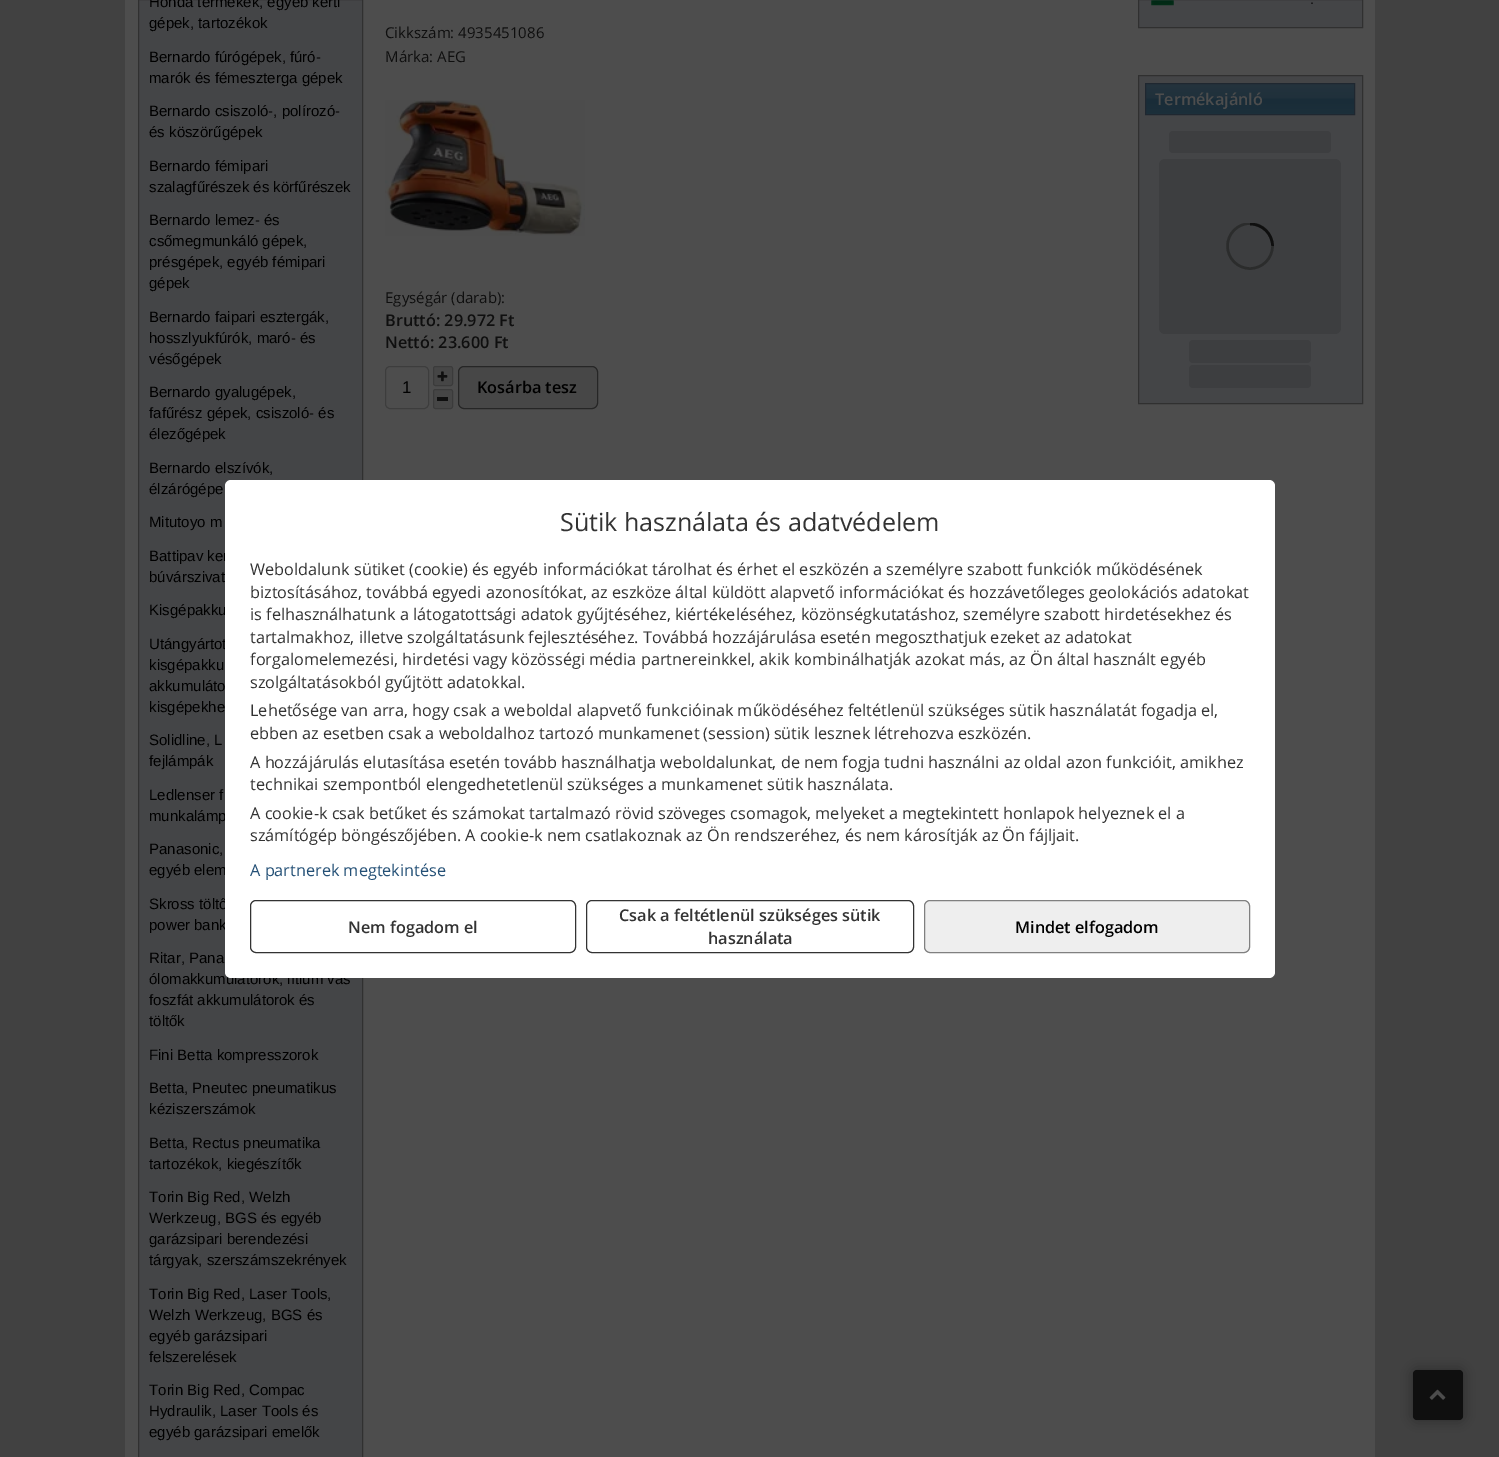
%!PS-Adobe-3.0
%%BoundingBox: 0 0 1499 1457
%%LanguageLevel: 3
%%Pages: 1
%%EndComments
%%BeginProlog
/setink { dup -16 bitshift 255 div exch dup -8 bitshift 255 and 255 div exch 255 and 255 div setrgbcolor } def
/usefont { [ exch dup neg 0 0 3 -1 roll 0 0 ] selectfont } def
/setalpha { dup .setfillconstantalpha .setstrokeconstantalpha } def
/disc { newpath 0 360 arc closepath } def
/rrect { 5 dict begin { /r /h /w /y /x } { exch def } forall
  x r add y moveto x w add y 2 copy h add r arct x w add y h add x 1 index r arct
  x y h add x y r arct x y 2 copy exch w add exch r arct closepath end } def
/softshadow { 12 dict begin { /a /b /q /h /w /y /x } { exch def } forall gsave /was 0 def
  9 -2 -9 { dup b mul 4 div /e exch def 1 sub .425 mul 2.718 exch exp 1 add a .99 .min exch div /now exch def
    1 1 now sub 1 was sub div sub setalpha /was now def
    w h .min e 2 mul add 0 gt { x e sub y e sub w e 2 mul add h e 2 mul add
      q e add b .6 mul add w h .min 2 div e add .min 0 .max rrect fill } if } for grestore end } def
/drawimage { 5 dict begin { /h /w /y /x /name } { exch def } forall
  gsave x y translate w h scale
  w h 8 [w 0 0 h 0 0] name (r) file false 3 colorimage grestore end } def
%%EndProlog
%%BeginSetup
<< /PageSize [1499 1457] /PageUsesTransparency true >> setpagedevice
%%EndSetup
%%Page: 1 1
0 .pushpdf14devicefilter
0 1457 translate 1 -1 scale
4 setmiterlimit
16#414141 setink
0 0 1499 1457 rectfill
16#4D4D4D setink
125 0 1250 1457 rectfill
16#444547 setink
138.5 -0.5 moveto 362.5 -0.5 lineto 362.5 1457.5 lineto 138.5 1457.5 lineto closepath gsave fill grestore
16#303030 setink
stroke
/LiberationSans-Regular 15 usefont
16#000000 setink
[
    [(Honda termékek, egyéb kerti) 149 7]
    [(gépek, tartozékok) 149 28]
    [(Bernardo fúrógépek, fúró-) 149 62]
    [(marók és fémeszterga gépek) 149 83]
    [(Bernardo csiszoló-, polírozó-) 149 116]
    [(és köszörűgépek) 149 137]
    [(Bernardo fémipari) 149 171]
    [(szalagfűrészek és körfűrészek) 149 192]
    [(Bernardo lemez- és) 149 225]
    [(csőmegmunkáló gépek,) 149 246]
    [(présgépek, egyéb fémipari) 149 267]
    [(gépek) 149 288]
    [(Bernardo faipari esztergák,) 149 322]
    [(hosszlyukfúrók, maró- és) 149 343]
    [(vésőgépek) 149 364]
    [(Bernardo gyalugépek,) 149 397]
    [(fafűrész gépek, csiszoló- és) 149 418]
    [(élezőgépek) 149 439]
    [(Bernardo elszívók,) 149 473]
    [(élzárógépe) 149 494]
    [(Mitutoyo m) 149 527]
    [(Battipav ker) 149 561]
    [(búvárszivat) 149 582]
    [(Kisgépakku) 149 615]
    [(Utángyártot) 149 649]
    [(kisgépakku) 149 670]
    [(akkumuláto) 149 691]
    [(kisgépekhe) 149 712]
    [(Solidline, L) 149 745]
    [(fejlámpák) 149 766]
    [(Ledlenser f) 149 800]
    [(munkalámp) 149 821]
    [(Panasonic,) 149 854]
    [(egyéb elem) 149 875]
    [(Skross töltő) 149 909]
    [(power bank) 149 930]
    [(Ritar, Pana) 149 963]
    [(ólomakkumulátorok, lítium vas) 149 984]
    [(foszfát akkumulátorok és) 149 1005]
    [(töltők) 149 1026]
    [(Fini Betta kompresszorok) 149 1060]
    [(Betta, Pneutec pneumatikus) 149 1093]
    [(kéziszerszámok) 149 1114]
    [(Betta, Rectus pneumatika) 149 1148]
    [(tartozékok, kiegészítők) 149 1169]
    [(Torin Big Red, Welzh) 149 1202]
    [(Werkzeug, BGS és egyéb) 149 1223]
    [(garázsipari berendezési) 149 1244]
    [(tárgyak, szerszámszekrények) 149 1265]
    [(Torin Big Red, Laser Tools,) 149 1299]
    [(Welzh Werkzeug, BGS és) 149 1320]
    [(egyéb garázsipari) 149 1341]
    [(felszerelések) 149 1362]
    [(Torin Big Red, Compac) 149 1395]
    [(Hydraulik, Laser Tools és) 149 1416]
    [(egyéb garázsipari emelők) 149 1437]
] { aload pop moveto show } forall
/OpenSans-Regular 15 usefont
16#0F0F0F setink
385 38 moveto (Cikkszám: 4935451086) show
385 62 moveto (Márka: AEG) show
(img1.raw) 385 100 200 136 drawimage
385 303 moveto (Egységár \(darab\):) show
/OpenSans-SemiBold 16.25 usefont
385 326 moveto (Bruttó: 29.972 Ft) show
385 348 moveto (Nettó: 23.600 Ft) show
16#3D3D3D setink
385.5 366.5 43 42 4.5 rrect stroke
/LiberationSans-Regular 17 usefont
16#000000 setink
402 393 moveto (1) show
16#464646 setink
433.5 366.5 19 19 2 rrect gsave fill grestore
16#3B3B3B setink
stroke
(img2.raw) 437 371 11 11 drawimage
16#464646 setink
433.5 389.5 19 19 2 rrect gsave fill grestore
16#3B3B3B setink
stroke
16#0F0F0F setink
437 397 11 4 rectfill
16#474747 setink
458.5 366.5 139 42 5.5 rrect gsave fill grestore
16#262626 setink
stroke
/OpenSans-SemiBold 16.25 usefont
16#000000 setink
477 393 moveto (Kosárba tesz) show
16#444547 setink
1138.5 -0.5 moveto 1362.5 -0.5 lineto 1362.5 27.5 lineto 1138.5 27.5 lineto closepath gsave fill grestore
16#303030 setink
stroke
(img3.raw) 1151 0 23 6 drawimage
/LiberationSans-Regular 15 usefont
16#0F0F0F setink
1310 4 moveto (.) show
16#444547 setink
1138.5 75.5 moveto 1362.5 75.5 lineto 1362.5 403.5 lineto 1138.5 403.5 lineto closepath gsave fill grestore
16#303030 setink
stroke
gsave 1146 84 moveto 1354 84 lineto 1354 114 lineto 1146 114 lineto closepath clip newpath
<< /ShadingType 2 /ColorSpace /DeviceRGB /Coords [1250 84 1250 114] /Extend [true true] /Function << /FunctionType 3 /Domain [0 1] /Functions [<< /FunctionType 2 /Domain [0 1] /C0 [0.141 0.2 0.239] /C1 [0.122 0.188 0.231] /N 1 >> << /FunctionType 2 /Domain [0 1] /C0 [0.122 0.188 0.231] /C1 [0.098 0.173 0.22] /N 1 >> << /FunctionType 2 /Domain [0 1] /C0 [0.098 0.173 0.22] /C1 [0.11 0.184 0.227] /N 1 >>] /Bounds [0.49 0.5] /Encode [0 1 0 1 0 1] >> >> shfill grestore
16#1F2730 setink
1145.5 83.5 209 31 rectstroke
/OpenSans-SemiBold 16.25 usefont
16#4D4D4D setink
1155 105 moveto (Termékajánló) show
16#3D3E40 setink
1169 131 162 22 4 rrect fill
1159 159 182 175 6 rrect fill
gsave
1226 223 48 47 rectclip
16#2B2C2C setink
2.5 setlinewidth
1250 246 22.5 disc stroke
16#0F0F0F setink
1272.5 246 moveto 1272.5 234 1262.5 224 1250 224 curveto stroke
grestore
1189 340 122 23 4 rrect fill
1189 365 122 23 4 rrect fill
16#FFFFFF setink
225 480 1050 498 6 rrect fill
/OpenSans-Regular 25 usefont
16#333333 setink
560 531 moveto (Sütik használata és adatvédelem) show
/OpenSans-Regular 16.25 usefont
[
    [(Weboldalunk sütiket \(cookie\) és egyéb információkat tárolhat és érhet el eszközén a személyre szabott funkciók működésének) 250 575]
    [(biztosításához, továbbá egyedi azonosítókat, az eszköze által küldött alapvető információkat és hozzávetőleges geolokációs adatokat) 250 598]
    [(is felhasználhatunk a látogatottsági adatok gyűjtéséhez, kiértékeléséhez, közönségkutatáshoz, személyre szabott hirdetésekhez és) 250 620]
    [(tartalmakhoz, illetve szolgáltatásunk fejlesztéséhez. Továbbá hozzájárulása esetén megoszthatjuk ezeket az adatokat) 250 643]
    [(forgalomelemezési, hirdetési vagy közösségi média partnereinkkel, akik kombinálhatják azokat más, az Ön által használt egyéb) 250 665]
    [(szolgáltatásokból gyűjtött adatokkal.) 250 688]
    [(Lehetősége van arra, hogy csak a weboldal alapvető funkcióinak működéséhez feltétlenül szükséges sütik használatát fogadja el,) 250 716]
    [(ebben az esetben csak a weboldalhoz tartozó munkamenet \(session\) sütik lesznek létrehozva eszközén.) 250 739]
    [(A hozzájárulás elutasítása esetén tovább használhatja weboldalunkat, de nem fogja tudni használni az oldal azon funkcióit, amikhez) 250 768]
    [(technikai szempontból elengedhetetlenül szükséges a munkamenet sütik használata.) 250 790]
    [(A cookie-k csak betűket és számokat tartalmazó rövid szöveges csomagok, melyeket a megtekintett honlapok helyeznek el a) 250 819]
    [(számítógép böngészőjében. A cookie-k nem csatlakoznak az Ön rendszeréhez, és nem károsítják az Ön fájljait.) 250 841]
] { aload pop moveto show } forall
16#245076 setink
250 876 moveto (A partnerek megtekintése) show
16#333333 setink
250.5 900.5 325 52 5.5 rrect stroke
/OpenSans-SemiBold 16.25 usefont
348 933 moveto (Nem fogadom el) show
586.5 900.5 327 52 5.5 rrect stroke
619 921 moveto (Csak a feltétlenül szükséges sütik) show
708 944 moveto (használata) show
16#EEEEEE setink
924.5 900.5 325 52 5.5 rrect gsave fill grestore
16#808080 setink
stroke
16#000000 setink
1015 933 moveto (Mindet elfogadom) show
16#0F0F0F setink
1413 1370 50 50 4 6 0.4 softshadow
1413 1370 50 50 4 rrect fill
(img4.raw) 1429 1389 17 11 drawimage
.poppdf14devicefilter showpage
%%EOF
